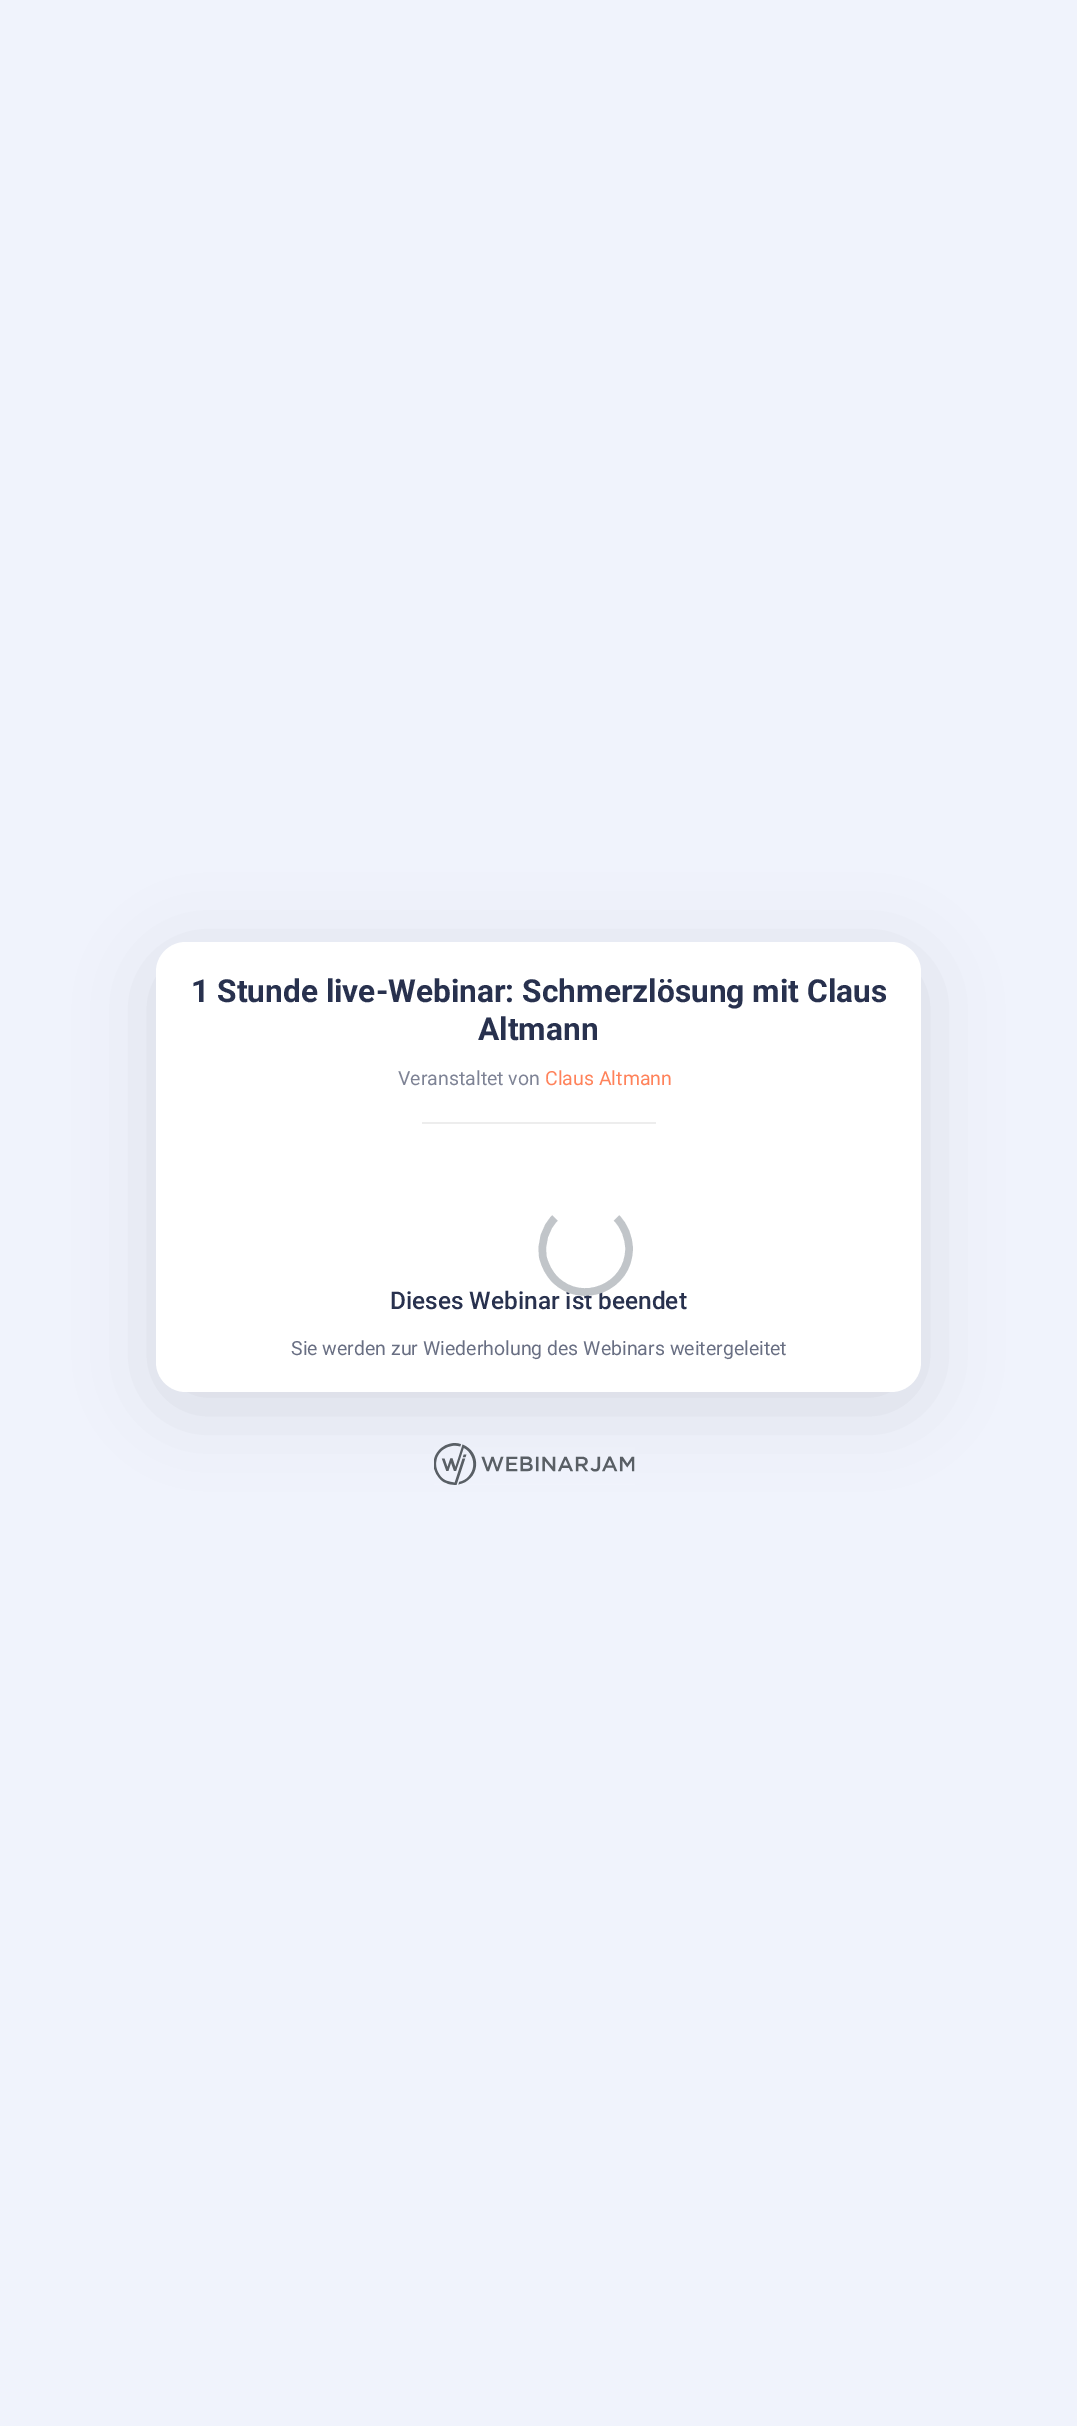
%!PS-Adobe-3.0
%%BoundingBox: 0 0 1077 2426
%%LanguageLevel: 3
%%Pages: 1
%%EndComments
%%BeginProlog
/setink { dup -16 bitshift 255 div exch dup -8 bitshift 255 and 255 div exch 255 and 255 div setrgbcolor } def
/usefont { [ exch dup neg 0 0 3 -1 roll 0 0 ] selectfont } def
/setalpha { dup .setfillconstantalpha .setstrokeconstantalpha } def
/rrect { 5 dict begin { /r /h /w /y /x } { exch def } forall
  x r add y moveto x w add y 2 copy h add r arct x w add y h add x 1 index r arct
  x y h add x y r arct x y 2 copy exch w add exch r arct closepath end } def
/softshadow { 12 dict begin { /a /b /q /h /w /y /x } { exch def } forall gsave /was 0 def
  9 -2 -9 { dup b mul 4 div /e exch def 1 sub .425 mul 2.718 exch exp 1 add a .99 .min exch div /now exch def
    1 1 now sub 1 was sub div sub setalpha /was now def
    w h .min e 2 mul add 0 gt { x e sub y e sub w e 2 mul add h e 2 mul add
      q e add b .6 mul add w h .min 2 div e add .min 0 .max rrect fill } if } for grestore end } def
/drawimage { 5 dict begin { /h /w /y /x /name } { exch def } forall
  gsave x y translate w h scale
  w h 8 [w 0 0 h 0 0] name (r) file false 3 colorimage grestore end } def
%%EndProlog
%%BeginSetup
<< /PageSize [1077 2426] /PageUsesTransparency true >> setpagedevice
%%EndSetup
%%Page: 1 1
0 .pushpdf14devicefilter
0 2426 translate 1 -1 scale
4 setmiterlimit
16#F0F3FC setink
0 0 1077 2426 rectfill
16#000000 setink
156 957 765 450 30 37.5 0.1 softshadow
16#FFFFFF setink
156 942 765 450 30 rrect fill
/Roboto-Bold 31.7 usefont
16#28314E setink
191 1002 moveto (1 Stunde live-Webinar: Schmerzlösung mit Claus) show
478 1040 moveto (Altmann) show
/Roboto-Regular 19.5 usefont
16#7E8395 setink
398 1085 moveto (Veranstaltet von) show
16#FF825A setink
545 1085 moveto (Claus Altmann) show
16#EDEDED setink
422 1122 234 2 rectfill
/Roboto-Medium 24.4 usefont
16#28314E setink
390 1309 moveto (Dieses Webinar ist beendet) show
16#C1C5C9 setink
7.5 setlinewidth
616.5 1218 moveto 624.5 1226 629 1237.5 629 1249 curveto 629 1287 582 1306.5 555 1279.5 curveto 549 1273.5 545 1265.5 543 1257.5 curveto 540.5 1243 545 1228 555 1218 curveto stroke
/Roboto-Regular 19.5 usefont
16#696F83 setink
291 1355 moveto (Sie werden zur Wiederholung des Webinars weitergeleitet) show
(img1.raw) 434 1443 201 42 drawimage
.poppdf14devicefilter showpage
%%EOF
